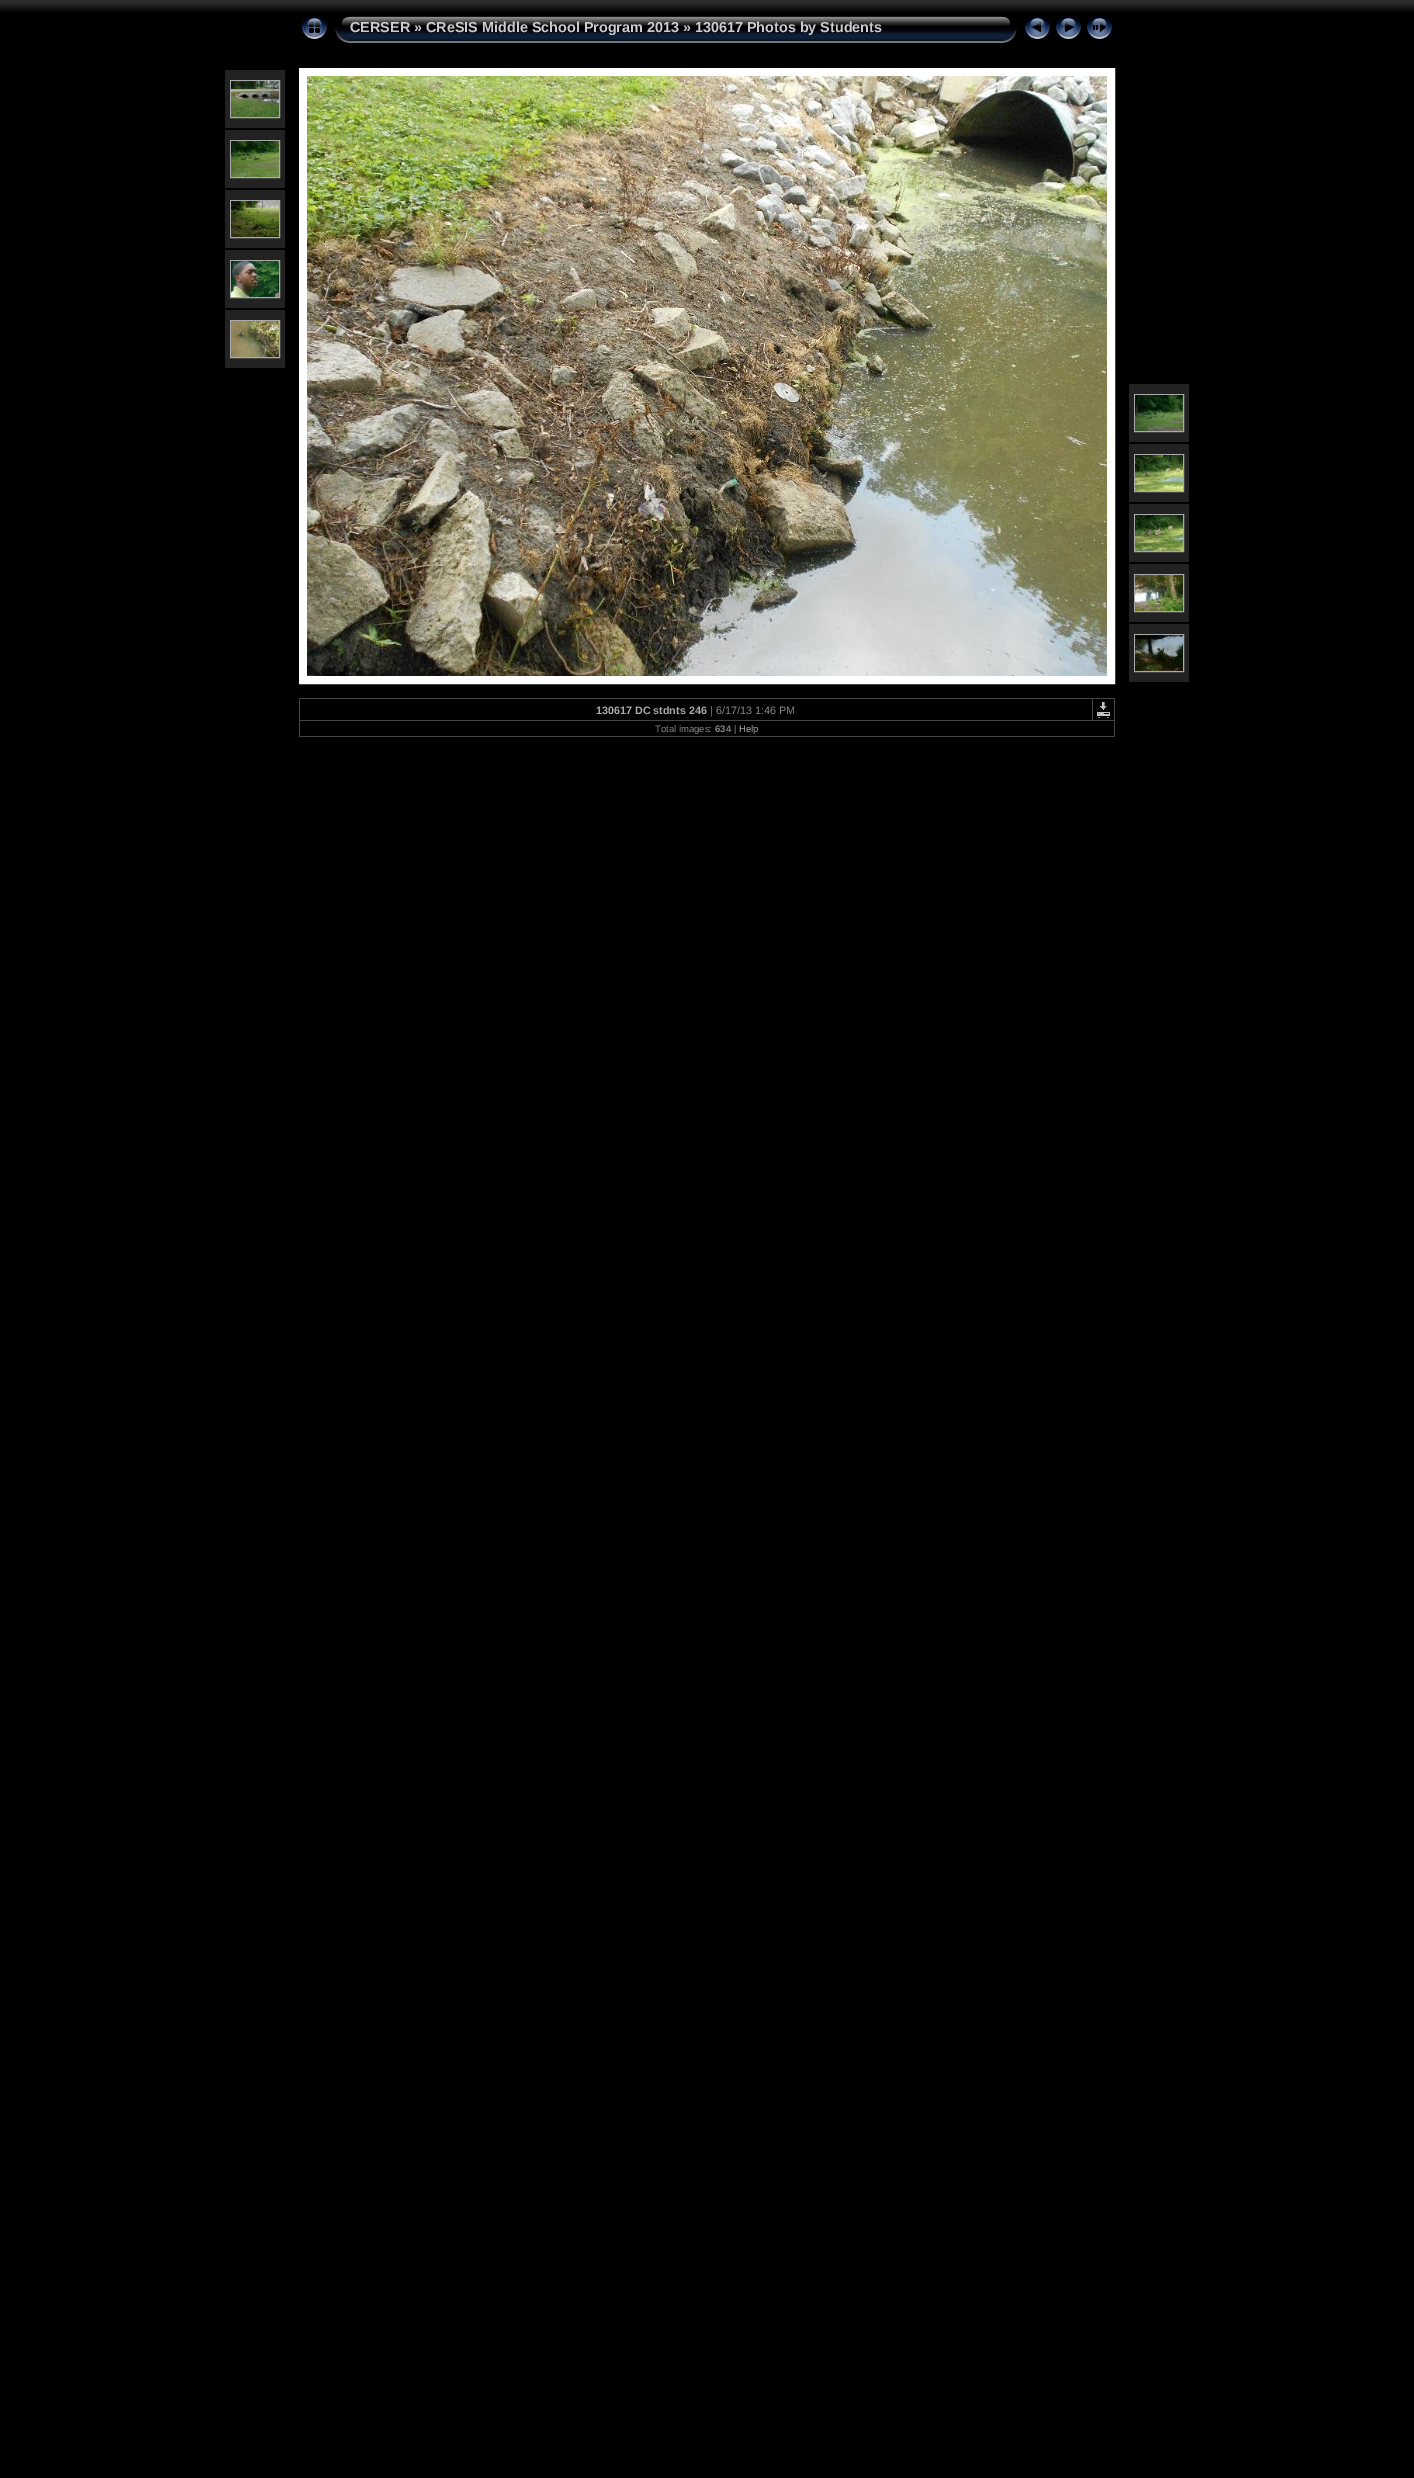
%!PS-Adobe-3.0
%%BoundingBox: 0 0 1414 2478
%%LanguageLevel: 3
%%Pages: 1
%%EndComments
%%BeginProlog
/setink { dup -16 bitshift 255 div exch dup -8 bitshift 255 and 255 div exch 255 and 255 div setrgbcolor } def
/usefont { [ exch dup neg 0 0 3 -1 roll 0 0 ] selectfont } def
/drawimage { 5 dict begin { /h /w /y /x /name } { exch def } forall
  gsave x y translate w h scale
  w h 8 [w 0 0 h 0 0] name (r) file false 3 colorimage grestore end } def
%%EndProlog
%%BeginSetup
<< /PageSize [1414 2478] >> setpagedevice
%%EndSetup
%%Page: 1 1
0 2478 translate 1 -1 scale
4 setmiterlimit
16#000000 setink
0 0 1414 2478 rectfill
(img1.raw) 0 0 1414 12 drawimage
(img2.raw) 302 16 25 23 drawimage
(img3.raw) 335 16 15 27 drawimage
(img4.raw) 350 16 652 27 drawimage
/LiberationSans-Bold 14.4 usefont
16#CCCCCC setink
350 32 moveto (CERSER » CReSIS Middle School Program 2013 » 130617 Photos by Students) show
(img5.raw) 1002 16 15 27 drawimage
(img6.raw) 1025 16 25 23 drawimage
(img7.raw) 1056 16 25 23 drawimage
(img8.raw) 1087 16 25 23 drawimage
16#222222 setink
225 70 60 58 rectfill
16#AAAAAA setink
230.5 80.5 49 37 rectstroke
(img9.raw) 231 81 48 36 drawimage
16#222222 setink
225 130 60 58 rectfill
16#AAAAAA setink
230.5 140.5 49 37 rectstroke
(img10.raw) 231 141 48 36 drawimage
16#222222 setink
225 190 60 58 rectfill
16#AAAAAA setink
230.5 200.5 49 37 rectstroke
(img11.raw) 231 201 48 36 drawimage
16#222222 setink
225 250 60 58 rectfill
16#AAAAAA setink
230.5 260.5 49 37 rectstroke
(img12.raw) 231 261 48 36 drawimage
16#222222 setink
225 310 60 58 rectfill
16#AAAAAA setink
230.5 320.5 49 37 rectstroke
(img13.raw) 231 321 48 36 drawimage
16#FFFFFF setink
8 setlinewidth
303 72 808 608 rectstroke
(img14.raw) 307 76 800 600 drawimage
16#222222 setink
1129 384 60 58 rectfill
16#AAAAAA setink
1 setlinewidth
1134.5 394.5 49 37 rectstroke
(img15.raw) 1135 395 48 36 drawimage
16#222222 setink
1129 444 60 58 rectfill
16#AAAAAA setink
1134.5 454.5 49 37 rectstroke
(img16.raw) 1135 455 48 36 drawimage
16#222222 setink
1129 504 60 58 rectfill
16#AAAAAA setink
1134.5 514.5 49 37 rectstroke
(img17.raw) 1135 515 48 36 drawimage
16#222222 setink
1129 564 60 58 rectfill
16#AAAAAA setink
1134.5 574.5 49 37 rectstroke
(img18.raw) 1135 575 48 36 drawimage
16#222222 setink
1129 624 60 58 rectfill
16#AAAAAA setink
1134.5 634.5 49 37 rectstroke
(img19.raw) 1135 635 48 36 drawimage
[
    [299 698 816 1 16#444444]
    [1114 698 1 39 16#444444]
    [299 736 816 1 16#444444]
    [299 698 1 39 16#444444]
] { aload pop setink rectfill } forall
/LiberationSans-Bold 10.75 usefont
16#AAAAAA setink
596 714 moveto (130617 DC stdnts 246) show
/LiberationSans-Regular 10.75 usefont
16#888888 setink
710 714 moveto (| 6/17/13 1:46 PM) show
16#444444 setink
299 720 816 1 rectfill
1092 698 1 23 rectfill
(img20.raw) 1097 702 13 16 drawimage
/LiberationSans-Regular 9.5 usefont
16#888888 setink
655 732 moveto (Total images:) show
/LiberationSans-Bold 9.5 usefont
715 732 moveto (634) show
/LiberationSans-Regular 9.5 usefont
734 732 moveto (|) show
16#AAAAAA setink
739 732 moveto (Help) show
showpage
%%EOF
